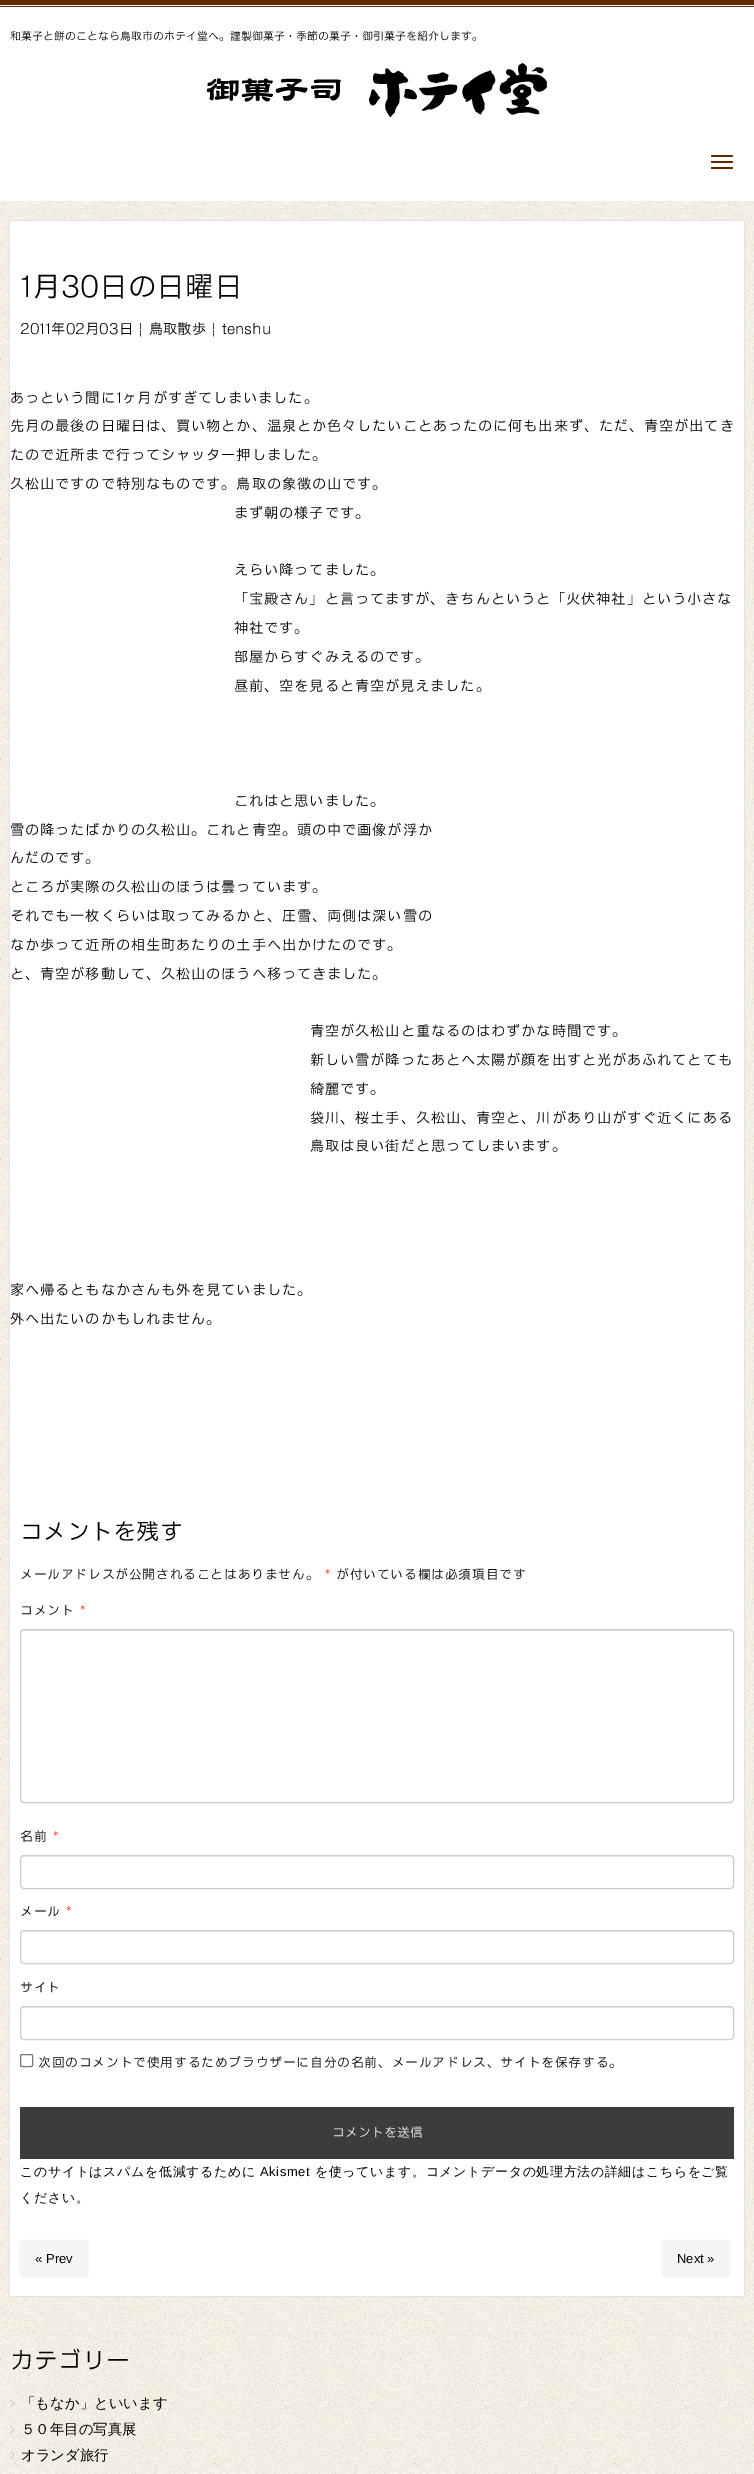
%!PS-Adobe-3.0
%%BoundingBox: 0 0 754 2474
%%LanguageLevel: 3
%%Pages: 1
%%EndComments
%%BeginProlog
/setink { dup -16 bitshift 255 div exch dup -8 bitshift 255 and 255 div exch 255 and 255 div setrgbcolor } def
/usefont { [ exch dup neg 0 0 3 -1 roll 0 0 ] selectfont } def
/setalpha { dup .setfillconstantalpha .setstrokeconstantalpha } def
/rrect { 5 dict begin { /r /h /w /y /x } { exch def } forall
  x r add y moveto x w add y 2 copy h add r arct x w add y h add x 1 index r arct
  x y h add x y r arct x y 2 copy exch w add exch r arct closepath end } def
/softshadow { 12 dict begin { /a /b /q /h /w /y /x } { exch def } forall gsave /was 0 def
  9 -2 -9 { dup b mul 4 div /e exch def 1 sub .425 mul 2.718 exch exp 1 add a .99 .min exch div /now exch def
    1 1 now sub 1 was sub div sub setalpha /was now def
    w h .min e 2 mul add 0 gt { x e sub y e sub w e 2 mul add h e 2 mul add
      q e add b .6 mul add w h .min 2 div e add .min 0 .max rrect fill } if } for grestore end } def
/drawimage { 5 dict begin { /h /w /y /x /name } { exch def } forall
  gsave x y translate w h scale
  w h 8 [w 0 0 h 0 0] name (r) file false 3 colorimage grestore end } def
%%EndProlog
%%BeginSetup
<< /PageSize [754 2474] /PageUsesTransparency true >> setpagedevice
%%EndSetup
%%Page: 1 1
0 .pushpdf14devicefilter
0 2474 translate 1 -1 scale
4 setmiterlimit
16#FFFFFF setink
0 0 754 2474 rectfill
(img1.raw) 0 201 754 2273 drawimage
(img2.raw) 0 0 754 7 drawimage
/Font-Regular 11 usefont
16#000000 setink
10 40 moveto (和菓子と餅のことなら鳥取市のホテイ堂へ。謹製御菓子・季節の菓子・御引菓子を紹介します。) show
(img3.raw) 207 63 340 54 drawimage
16#642800 setink
711 155 22 2 1 rrect fill
711 161 22 2 1 rrect fill
711 167 22 2 1 rrect fill
16#AAAAAA setink
10 221 734 2075 0 0.5 1 softshadow
16#CCCCCC setink
10 221 734 2075 0 1 1 softshadow
16#FFFFFF setink
10 221 734 2075 0 1 1 softshadow
10 221 734 2075 rectfill
/Font-Regular 28.75 usefont
16#000000 setink
20 297 moveto (1月30日の日曜日) show
/Font-Regular 14.4 usefont
20 334 moveto (2011年02月03日 | 鳥取散歩 | tenshu) show
10 403 moveto 0.7 0 (あっという間に1ヶ月がすぎてしまいました。) ashow
10 431 moveto 0.7 0 (先月の最後の日曜日は、買い物とか、温泉とか色々したいことあったのに何も出来ず、ただ、青空が出てき) ashow
10 460 moveto 0.7 0 (たので近所まで行ってシャッター押しました。) ashow
10 489 moveto 0.7 0 (久松山ですので特別なものです。鳥取の象徴の山です。) ashow
234 518 moveto 0.7 0 (まず朝の様子です。) ashow
234 575 moveto 0.7 0 (えらい降ってました。) ashow
234 604 moveto 0.7 0 (「宝殿さん」と言ってますが、きちんというと「火伏神社」という小さな) ashow
234 633 moveto 0.7 0 (神社です。) ashow
234 662 moveto 0.7 0 (部屋からすぐみえるのです。) ashow
234 691 moveto 0.7 0 (昼前、空を見ると青空が見えました。) ashow
234 806 moveto 0.7 0 (これはと思いました。) ashow
10 835 moveto 0.7 0 (雪の降ったばかりの久松山。これと青空。頭の中で画像が浮か) ashow
10 863 moveto 0.7 0 (んだのです。) ashow
10 892 moveto 0.7 0 (ところが実際の久松山のほうは曇っています。) ashow
10 921 moveto 0.7 0 (それでも一枚くらいは取ってみるかと、圧雪、両側は深い雪の) ashow
10 950 moveto 0.7 0 (なか歩って近所の相生町あたりの土手へ出かけたのです。) ashow
10 979 moveto 0.7 0 (と、青空が移動して、久松山のほうへ移ってきました。) ashow
310 1036 moveto 0.7 0 (青空が久松山と重なるのはわずかな時間です。) ashow
310 1065 moveto 0.7 0 (新しい雪が降ったあとへ太陽が顔を出すと光があふれてとても) ashow
310 1094 moveto 0.7 0 (綺麗です。) ashow
310 1123 moveto 0.7 0 (袋川、桜土手、久松山、青空と、川があり山がすぐ近くにある) ashow
310 1151 moveto 0.7 0 (鳥取は良い街だと思ってしまいます。) ashow
10 1295 moveto 0.7 0 (家へ帰るともなかさんも外を見ていました。) ashow
10 1324 moveto 0.7 0 (外へ出たいのかもしれません。) ashow
/Font-Regular 23.25 usefont
20 1540 moveto (コメントを残す) show
/Font-Regular 12.95 usefont
20 1579 moveto 0.65 0 (メールアドレスが公開されることはありません。) ashow
16#FF3333 setink
325 1579 moveto 0.65 0 (*) ashow
16#000000 setink
336 1579 moveto 0.65 0 (が付いている欄は必須項目です) ashow
20 1615 moveto 0.65 0 (コメント) ashow
16#FF3333 setink
80 1615 moveto 0.65 0 (*) ashow
16#ECECEC setink
24 1631 moveto 730 1631 lineto 732 1631 733 1632 733 1634 curveto 733 1632 732 1630 730 1630 curveto 24 1630 lineto 22 1630 21 1632 21 1634 curveto 21 1632 22 1631 24 1631 curveto closepath fill
16#CCCCCC setink
20.5 1629.5 713 173 3.5 rrect stroke
16#000000 setink
20 1841 moveto 0.65 0 (名前) ashow
16#FF3333 setink
53 1841 moveto 0.65 0 (*) ashow
16#ECECEC setink
24 1857 moveto 730 1857 lineto 732 1857 733 1858 733 1860 curveto 733 1858 732 1856 730 1856 curveto 24 1856 lineto 22 1856 21 1858 21 1860 curveto 21 1858 22 1857 24 1857 curveto closepath fill
16#CCCCCC setink
20.5 1855.5 713 33 3.5 rrect stroke
16#000000 setink
20 1916 moveto 0.65 0 (メール) ashow
16#FF3333 setink
66 1916 moveto 0.65 0 (*) ashow
16#ECECEC setink
24 1932 moveto 730 1932 lineto 732 1932 733 1933 733 1935 curveto 733 1933 732 1931 730 1931 curveto 24 1931 lineto 22 1931 21 1933 21 1935 curveto 21 1933 22 1932 24 1932 curveto closepath fill
16#CCCCCC setink
20.5 1930.5 713 33 3.5 rrect stroke
16#000000 setink
20 1992 moveto 0.65 0 (サイト) ashow
16#ECECEC setink
24 2008 moveto 730 2008 lineto 732 2008 733 2009 733 2011 curveto 733 2009 732 2007 730 2007 curveto 24 2007 lineto 22 2007 21 2009 21 2011 curveto 21 2009 22 2008 24 2008 curveto closepath fill
16#CCCCCC setink
20.5 2006.5 713 33 3.5 rrect stroke
16#767676 setink
20.5 2054.5 12 12 1.5 rrect stroke
16#000000 setink
38 2067 moveto 0.65 0 (次回のコメントで使用するためブラウザーに自分の名前、メールアドレス、サイトを保存する。) ashow
16#3C3C3C setink
20 2107 714 52 rectfill
16#F1F1F1 setink
332 2137 moveto (コメントを送信) show
/WenQuanYiZenHei-Medium 12.95 usefont
16#000000 setink
20 2176 moveto 0.65 0 (このサイトはスパムを低減するために) ashow
/LiberationSans-Regular 12.95 usefont
260 2176 moveto 0.65 0 (Akismet) ashow
/WenQuanYiZenHei-Medium 12.95 usefont
315 2176 moveto 0.65 0 (を使っています。コメントデータの処理方法の詳細はこちらをご覧) ashow
20 2202 moveto 0.65 0 (ください。) ashow
16#323232 setink
20 2241 68 36 4 1 0.1 softshadow
16#F5F5F5 setink
20 2240 68 36 4 rrect fill
/LiberationSans-Regular 13 usefont
16#000000 setink
35 2263 moveto (« Prev) show
16#323232 setink
662 2241 68 36 4 1 0.1 softshadow
16#F5F5F5 setink
662 2240 68 36 4 rrect fill
16#000000 setink
677 2263 moveto (Next ») show
/Font-Regular 24 usefont
10 2369 moveto (カテゴリー) show
(img4.raw) 10 2399 5 9 drawimage
/WenQuanYiZenHei-Medium 14.4 usefont
21 2408 moveto (「もなか」といいます) show
(img5.raw) 10 2425 5 9 drawimage
21 2434 moveto (５０年目の写真展) show
(img6.raw) 10 2451 5 9 drawimage
21 2460 moveto (オランダ旅行) show
.poppdf14devicefilter showpage
%%EOF
